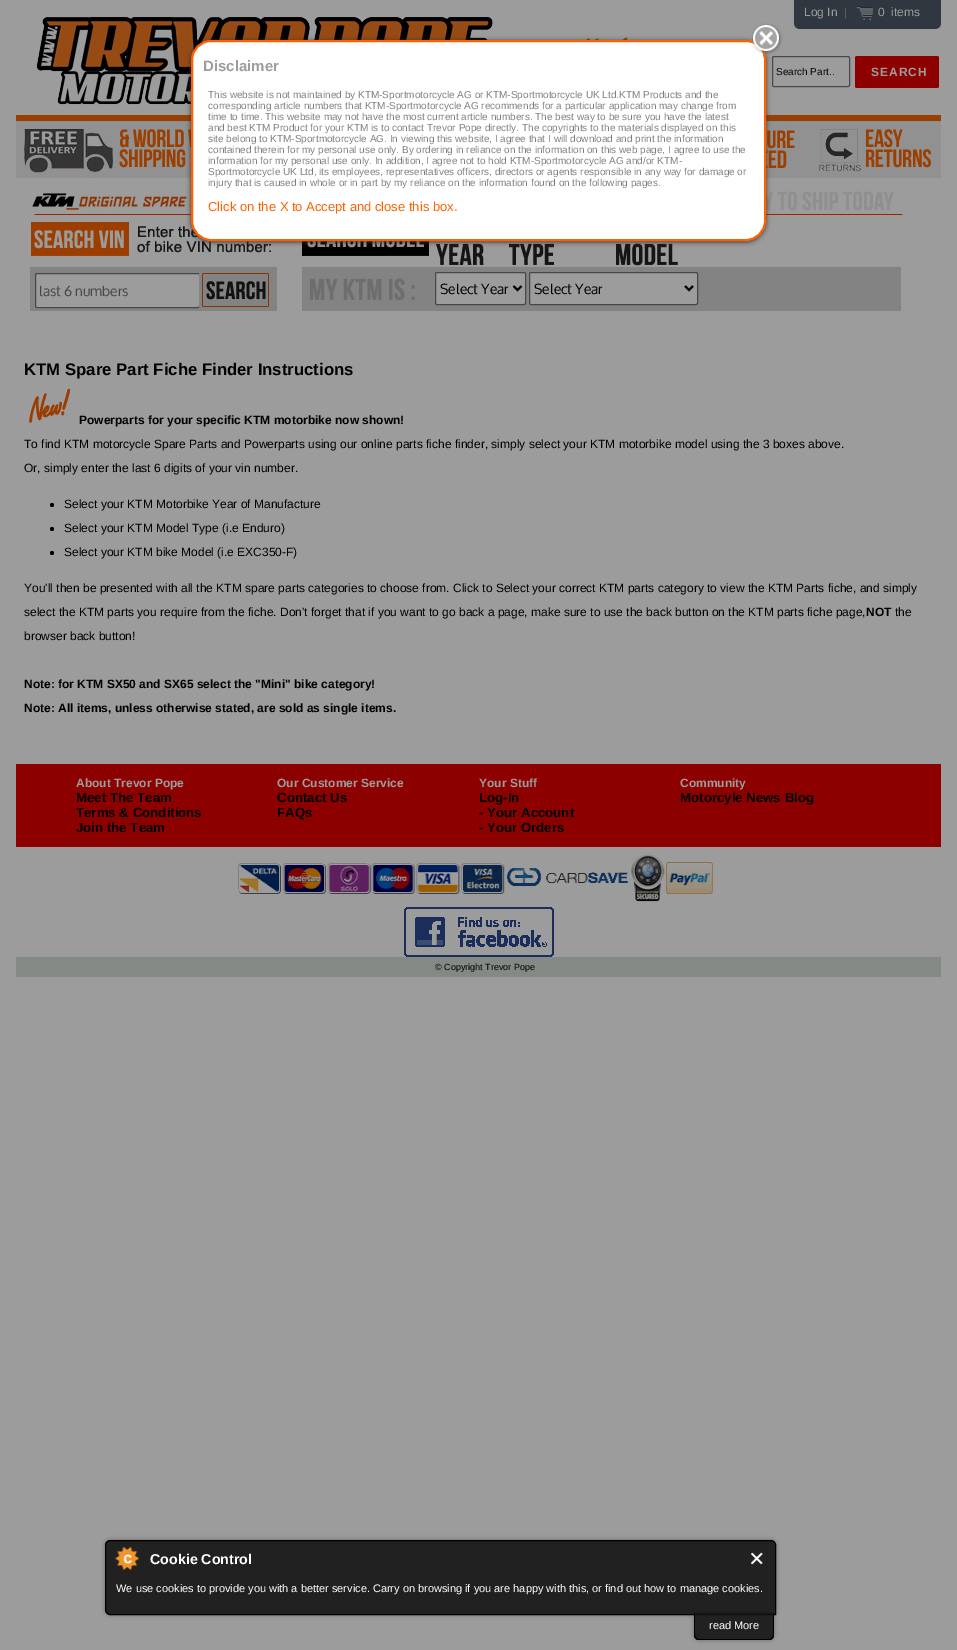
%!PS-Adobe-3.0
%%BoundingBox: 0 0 957 1650
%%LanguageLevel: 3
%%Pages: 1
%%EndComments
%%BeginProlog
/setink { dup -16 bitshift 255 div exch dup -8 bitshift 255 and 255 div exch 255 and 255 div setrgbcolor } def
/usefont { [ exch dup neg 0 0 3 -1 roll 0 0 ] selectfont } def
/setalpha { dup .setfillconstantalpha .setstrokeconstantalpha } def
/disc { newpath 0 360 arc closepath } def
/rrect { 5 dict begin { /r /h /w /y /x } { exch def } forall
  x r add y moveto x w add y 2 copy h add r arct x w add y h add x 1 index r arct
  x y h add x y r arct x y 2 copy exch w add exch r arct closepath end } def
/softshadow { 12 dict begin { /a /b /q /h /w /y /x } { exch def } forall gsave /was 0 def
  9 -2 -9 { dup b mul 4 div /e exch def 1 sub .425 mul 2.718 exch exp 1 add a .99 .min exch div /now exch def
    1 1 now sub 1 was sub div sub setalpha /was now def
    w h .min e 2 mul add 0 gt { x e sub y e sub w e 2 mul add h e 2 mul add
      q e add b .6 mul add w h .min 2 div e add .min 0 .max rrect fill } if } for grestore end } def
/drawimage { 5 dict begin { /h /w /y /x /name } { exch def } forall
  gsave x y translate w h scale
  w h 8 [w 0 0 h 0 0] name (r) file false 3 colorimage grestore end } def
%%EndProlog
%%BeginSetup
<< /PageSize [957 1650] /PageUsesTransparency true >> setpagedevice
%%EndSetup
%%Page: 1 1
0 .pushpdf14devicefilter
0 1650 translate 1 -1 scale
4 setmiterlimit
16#9C9C9C setink
0 0 957 1650 rectfill
16#303740 setink
794 0 moveto 941 0 lineto 941 23 lineto 941 26.5 938.5 29 935 29 curveto 800 29 lineto 796.5 29 794 26.5 794 23 curveto closepath fill
/LiberationSans-Regular 12 usefont
16#9C9C9C setink
804 16 moveto (Log In) show
/LiberationSans-Regular 11 usefont
16#6B6B6B setink
844 16 moveto (|) show
(img1.raw) 856 6 17 15 drawimage
/LiberationSans-Regular 12 usefont
16#9C9C9C setink
878 16 moveto (0  items) show
(img2.raw) 36 17 457 88 drawimage
(img3.raw) 554 37 169 3 drawimage
16#484848 setink
772.5 56.5 77 30 1.5 rrect stroke
/LiberationSans-Regular 10 usefont
16#000000 setink
776 75 moveto (Search Part..) show
16#8C0000 setink
855 56 84 32 2 rrect fill
/LiberationSans-Bold 12 usefont
16#9C9C9C setink
871 76 moveto 1 0 (SEARCH) ashow
(img5.raw) 30 191 873 120 drawimage
(img8.raw) 16 115 925 63 drawimage
16#333333 setink
191 41 575 201 20 2.5 1 softshadow
16#FFFFFF setink
192 41 573 199 19 rrect gsave fill grestore
16#FF6100 setink
2 setlinewidth
stroke
(img4.raw) 751 23 32 32 drawimage
/LiberationSans-Bold 15 usefont
16#9C9C9C setink
203 71 moveto (Disclaimer) show
/LiberationSans-Regular 10 usefont
16#7F7F7F setink
[
    [(This website is not maintained by KTM-Sportmotorcycle AG or KTM-Sportmotorcycle UK Ltd.KTM Products and the) 208 98]
    [(corresponding article numbers that KTM-Sportmotorcycle AG recommends for a particular application may change from) 208 109]
    [(time to time. This website may not have the most current article numbers. The best way to be sure you have the latest) 208 120]
    [(and best KTM Product for your KTM is to contact Trevor Pope directly. The copyrights to the materials displayed on this) 208 131]
    [(site belong to KTM-Sportmotorcycle AG. In viewing this website, I agree that I will download and print the information) 208 142]
    [(contained therein for my personal use only. By ordering in reliance on the information on this web page, I agree to use the) 208 153]
    [(information for my personal use only. In addition, I agree not to hold KTM-Sportmotorcycle AG and/or KTM-) 208 164]
    [(Sportmotorcycle UK Ltd, its employees, representatives officers, directors or agents responsible in any way for damage or) 208 175]
    [(injury that is caused in whole or in part by my reliance on the information found on the following pages.) 208 186]
] { aload pop moveto show } forall
/LiberationSans-Regular 13 usefont
16#FF6100 setink
208 211 moveto (Click on the X to Accept and close this box.) show
16#9C9C9C setink
35.5 273.5 164 34 1.5 rrect gsave fill grestore
16#484848 setink
1 setlinewidth
stroke
/Oxygen-Regular 14 usefont
16#474747 setink
39 296 moveto (last 6 numbers) show
(img6.raw) 199 273 70 35 drawimage
16#9C9C9C setink
435.5 272.5 90 32 1.5 rrect gsave fill grestore
16#484848 setink
stroke
16#000000 setink
2 setlinewidth
513.5 286 moveto 517.5 290 lineto 521.5 286 lineto stroke
440 294 moveto (Select Year) show
16#9C9C9C setink
529.5 272.5 168 32 1.5 rrect gsave fill grestore
16#484848 setink
1 setlinewidth
stroke
16#000000 setink
2 setlinewidth
685 286 moveto 689 290 lineto 693 286 lineto stroke
534 294 moveto (Select Year) show
/LiberationSans-Bold 16.75 usefont
24 375 moveto (KTM Spare Part Fiche Finder Instructions) show
(img7.raw) 29 388 41 35 drawimage
/LiberationSans-Bold 12 usefont
79 424 moveto (Powerparts for your specific KTM motorbike now shown!) show
/LiberationSans-Regular 12 usefont
24 448 moveto (To find KTM motorcycle Spare Parts and Powerparts using our online parts fiche finder, simply select your KTM motorbike model using the 3 boxes above.) show
24 472 moveto (Or, simply enter the last 6 digits of your vin number.) show
52 505 2 disc fill
64 508 moveto (Select your KTM Motorbike Year of Manufacture) show
52 529 2 disc fill
64 532 moveto (Select your KTM Model Type \(i.e Enduro\)) show
52 553 2 disc fill
[
    [(Select your KTM bike Model \(i.e EXC350-F\)) 64 556]
    [(You'll then be presented with all the KTM spare parts categories to choose from. Click to Select your correct KTM parts category to view the KTM Parts fiche, and simply) 24 592]
    [(select the KTM parts you require from the fiche. Don't forget that if you want to go back a page, make sure to use the back button on the KTM parts fiche page,) 24 616]
] { aload pop moveto show } forall
/LiberationSans-Bold 12 usefont
866 616 moveto (NOT) show
/LiberationSans-Regular 12 usefont
895 616 moveto (the) show
24 640 moveto (browser back button!) show
/LiberationSans-Bold 12 usefont
24 688 moveto (Note: for KTM SX50 and SX65 select the "Mini" bike category!) show
24 712 moveto (Note: All items, unless otherwise stated, are sold as single items.) show
16#8C0000 setink
16 764 925 83 rectfill
16#9C9C9C setink
[
    [(About Trevor Pope) 76 787]
    [(Our Customer Service) 277 787]
    [(Your Stuff) 479 787]
    [(Community) 680 787]
] { aload pop moveto show } forall
/LiberationSans-Bold 13.25 usefont
16#000000 setink
[
    [(Meet The Team) 76 802]
    [(Contact Us) 277 802]
    [(Log-In) 479 802]
    [(Motorcyle News Blog) 680 802]
    [(Terms & Conditions) 76 817]
    [(FAQs) 277 817]
    [(- Your Account) 479 817]
    [(Join the Team) 76 832]
    [(- Your Orders) 479 832]
] { aload pop moveto show } forall
(img9.raw) 238 853 475 49 drawimage
(img10.raw) 404 907 150 50 drawimage
16#838A86 setink
16 957 925 20 rectfill
/LiberationSans-Regular 9 usefont
16#000000 setink
435 970 moveto (© Copyright Trevor Pope) show
gsave
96 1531 moveto 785 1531 lineto 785 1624 lineto 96 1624 lineto closepath 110 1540 moveto 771 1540 lineto 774 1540 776 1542 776 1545 curveto 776 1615 lineto 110 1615 lineto 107 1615 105 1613 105 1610 curveto 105 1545 lineto 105 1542 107 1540 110 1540 curveto closepath eoclip newpath
105 1540 671 75 5 2.5 0.3 softshadow
grestore
0.9 setalpha
16#141414 setink
110 1540.5 moveto 771 1540.5 lineto 773.5 1540.5 775.5 1542.5 775.5 1545 curveto 775.5 1614.5 lineto 110 1614.5 lineto 107.5 1614.5 105.5 1612.5 105.5 1610 curveto 105.5 1545 lineto 105.5 1542.5 107.5 1540.5 110 1540.5 curveto closepath fill
1 setalpha
16#000000 setink
1 setlinewidth
110 1540.5 moveto 771 1540.5 lineto 773.5 1540.5 775.5 1542.5 775.5 1545 curveto 775.5 1614.5 lineto 110 1614.5 lineto 107.5 1614.5 105.5 1612.5 105.5 1610 curveto 105.5 1545 lineto 105.5 1542.5 107.5 1540.5 110 1540.5 curveto closepath stroke
(img11.raw) 115 1547 25 23 drawimage
/LiberationSans-Bold 14.25 usefont
16#FFFFFF setink
150 1564 moveto (Cookie Control) show
(img12.raw) 751 1552 12 13 drawimage
/LiberationSans-Regular 11 usefont
116 1592 moveto (We use cookies to provide you with a better service. Carry on browsing if you are happy with this, or find out how to manage cookies.) show
gsave
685 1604 moveto 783 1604 lineto 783 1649 lineto 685 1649 lineto closepath 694 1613 moveto 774 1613 lineto 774 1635 lineto 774 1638 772 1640 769 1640 curveto 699 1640 lineto 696 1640 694 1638 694 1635 curveto closepath eoclip newpath
16#000000 setink
694 1613 80 27 5 2.5 0.3 softshadow
grestore
0.9 setalpha
16#141414 setink
694 1613 moveto 774 1613 lineto 774 1635 lineto 774 1638 772 1640 769 1640 curveto 699 1640 lineto 696 1640 694 1638 694 1635 curveto closepath fill
1 setalpha
16#000000 setink
694 1613 moveto 774 1613 lineto 774 1635 lineto 774 1638 772 1640 769 1640 curveto 699 1640 lineto 696 1640 694 1638 694 1635 curveto closepath 695 1613 moveto 773 1613 lineto 773 1635 lineto 773 1637 771 1639 769 1639 curveto 699 1639 lineto 697 1639 695 1637 695 1635 curveto closepath eofill
16#FFFFFF setink
709 1629 moveto (read More) show
.poppdf14devicefilter showpage
%%EOF
